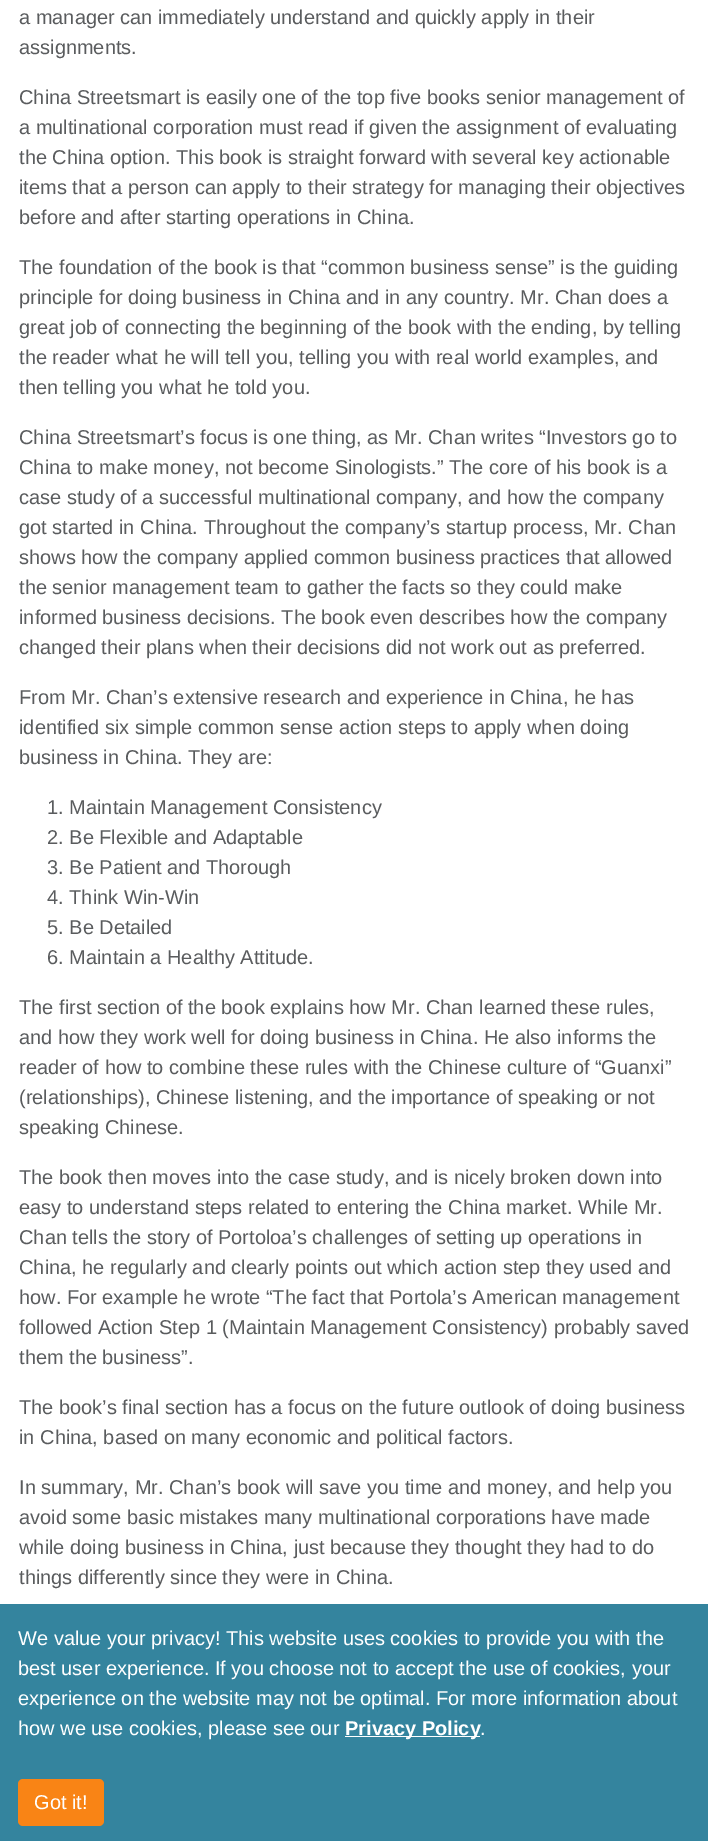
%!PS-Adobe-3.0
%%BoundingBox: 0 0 708 1841
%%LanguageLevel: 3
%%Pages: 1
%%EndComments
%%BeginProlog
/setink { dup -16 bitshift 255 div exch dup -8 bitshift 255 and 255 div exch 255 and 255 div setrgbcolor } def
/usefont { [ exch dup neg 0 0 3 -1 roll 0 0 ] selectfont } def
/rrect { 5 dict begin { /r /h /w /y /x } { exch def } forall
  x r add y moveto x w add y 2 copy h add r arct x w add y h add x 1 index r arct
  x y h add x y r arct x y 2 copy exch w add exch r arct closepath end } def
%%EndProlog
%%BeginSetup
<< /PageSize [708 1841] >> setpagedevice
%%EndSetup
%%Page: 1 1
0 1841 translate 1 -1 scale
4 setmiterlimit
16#FFFFFF setink
0 0 708 1841 rectfill
/LiberationSans-Regular 20 usefont
16#5A5C5E setink
[
    [(a manager can immediately understand and quickly apply in their) 19 24]
    [(assignments.) 19 54]
    [(China Streetsmart is easily one of the top five books senior management of) 19 104]
    [(a multinational corporation must read if given the assignment of evaluating) 19 134]
    [(the China option. This book is straight forward with several key actionable) 19 164]
    [(items that a person can apply to their strategy for managing their objectives) 19 194]
    [(before and after starting operations in China.) 19 224]
    [(The foundation of the book is that “common business sense” is the guiding) 19 274]
    [(principle for doing business in China and in any country. Mr. Chan does a) 19 304]
    [(great job of connecting the beginning of the book with the ending, by telling) 19 334]
    [(the reader what he will tell you, telling you with real world examples, and) 19 364]
    [(then telling you what he told you.) 19 394]
    [(China Streetsmart’s focus is one thing, as Mr. Chan writes “Investors go to) 19 444]
    [(China to make money, not become Sinologists.” The core of his book is a) 19 474]
    [(case study of a successful multinational company, and how the company) 19 504]
    [(got started in China. Throughout the company’s startup process, Mr. Chan) 19 534]
    [(shows how the company applied common business practices that allowed) 19 564]
    [(the senior management team to gather the facts so they could make) 19 594]
    [(informed business decisions. The book even describes how the company) 19 624]
    [(changed their plans when their decisions did not work out as preferred.) 19 654]
    [(From Mr. Chan’s extensive research and experience in China, he has) 19 704]
    [(identified six simple common sense action steps to apply when doing) 19 734]
    [(business in China. They are:) 19 764]
    [(1. Maintain Management Consistency) 47 814]
    [(2. Be Flexible and Adaptable) 47 844]
    [(3. Be Patient and Thorough) 47 874]
    [(4. Think Win-Win) 47 904]
    [(5. Be Detailed) 47 934]
    [(6. Maintain a Healthy Attitude.) 47 964]
    [(The first section of the book explains how Mr. Chan learned these rules,) 19 1014]
    [(and how they work well for doing business in China. He also informs the) 19 1044]
    [(reader of how to combine these rules with the Chinese culture of “Guanxi”) 19 1074]
    [(\(relationships\), Chinese listening, and the importance of speaking or not) 19 1104]
    [(speaking Chinese.) 19 1134]
    [(The book then moves into the case study, and is nicely broken down into) 19 1184]
    [(easy to understand steps related to entering the China market. While Mr.) 19 1214]
    [(Chan tells the story of Portoloa’s challenges of setting up operations in) 19 1244]
    [(China, he regularly and clearly points out which action step they used and) 19 1274]
    [(how. For example he wrote “The fact that Portola’s American management) 19 1304]
    [(followed Action Step 1 \(Maintain Management Consistency\) probably saved) 19 1334]
    [(them the business”.) 19 1364]
    [(The book’s final section has a focus on the future outlook of doing business) 19 1414]
    [(in China, based on many economic and political factors.) 19 1444]
    [(In summary, Mr. Chan’s book will save you time and money, and help you) 19 1494]
    [(avoid some basic mistakes many multinational corporations have made) 19 1524]
    [(while doing business in China, just because they thought they had to do) 19 1554]
    [(things differently since they were in China.) 19 1584]
] { aload pop moveto show } forall
16#34849E setink
0 1604 708 237 rectfill
16#FFFFFF setink
[
    [(We value your privacy! This website uses cookies to provide you with the) 18 1645]
    [(best user experience. If you choose not to accept the use of cookies, your) 18 1675]
    [(experience on the website may not be optimal. For more information about) 18 1705]
    [(how we use cookies, please see our) 18 1735]
] { aload pop moveto show } forall
345 1736 135 1 rectfill
/LiberationSans-Bold 20 usefont
345 1735 moveto (Privacy Policy) show
/LiberationSans-Regular 20 usefont
480 1735 moveto (.) show
16#F98415 setink
18 1779 86 47 5 rrect fill
16#FFFFFF setink
34 1809 moveto (Got it!) show
showpage
%%EOF
